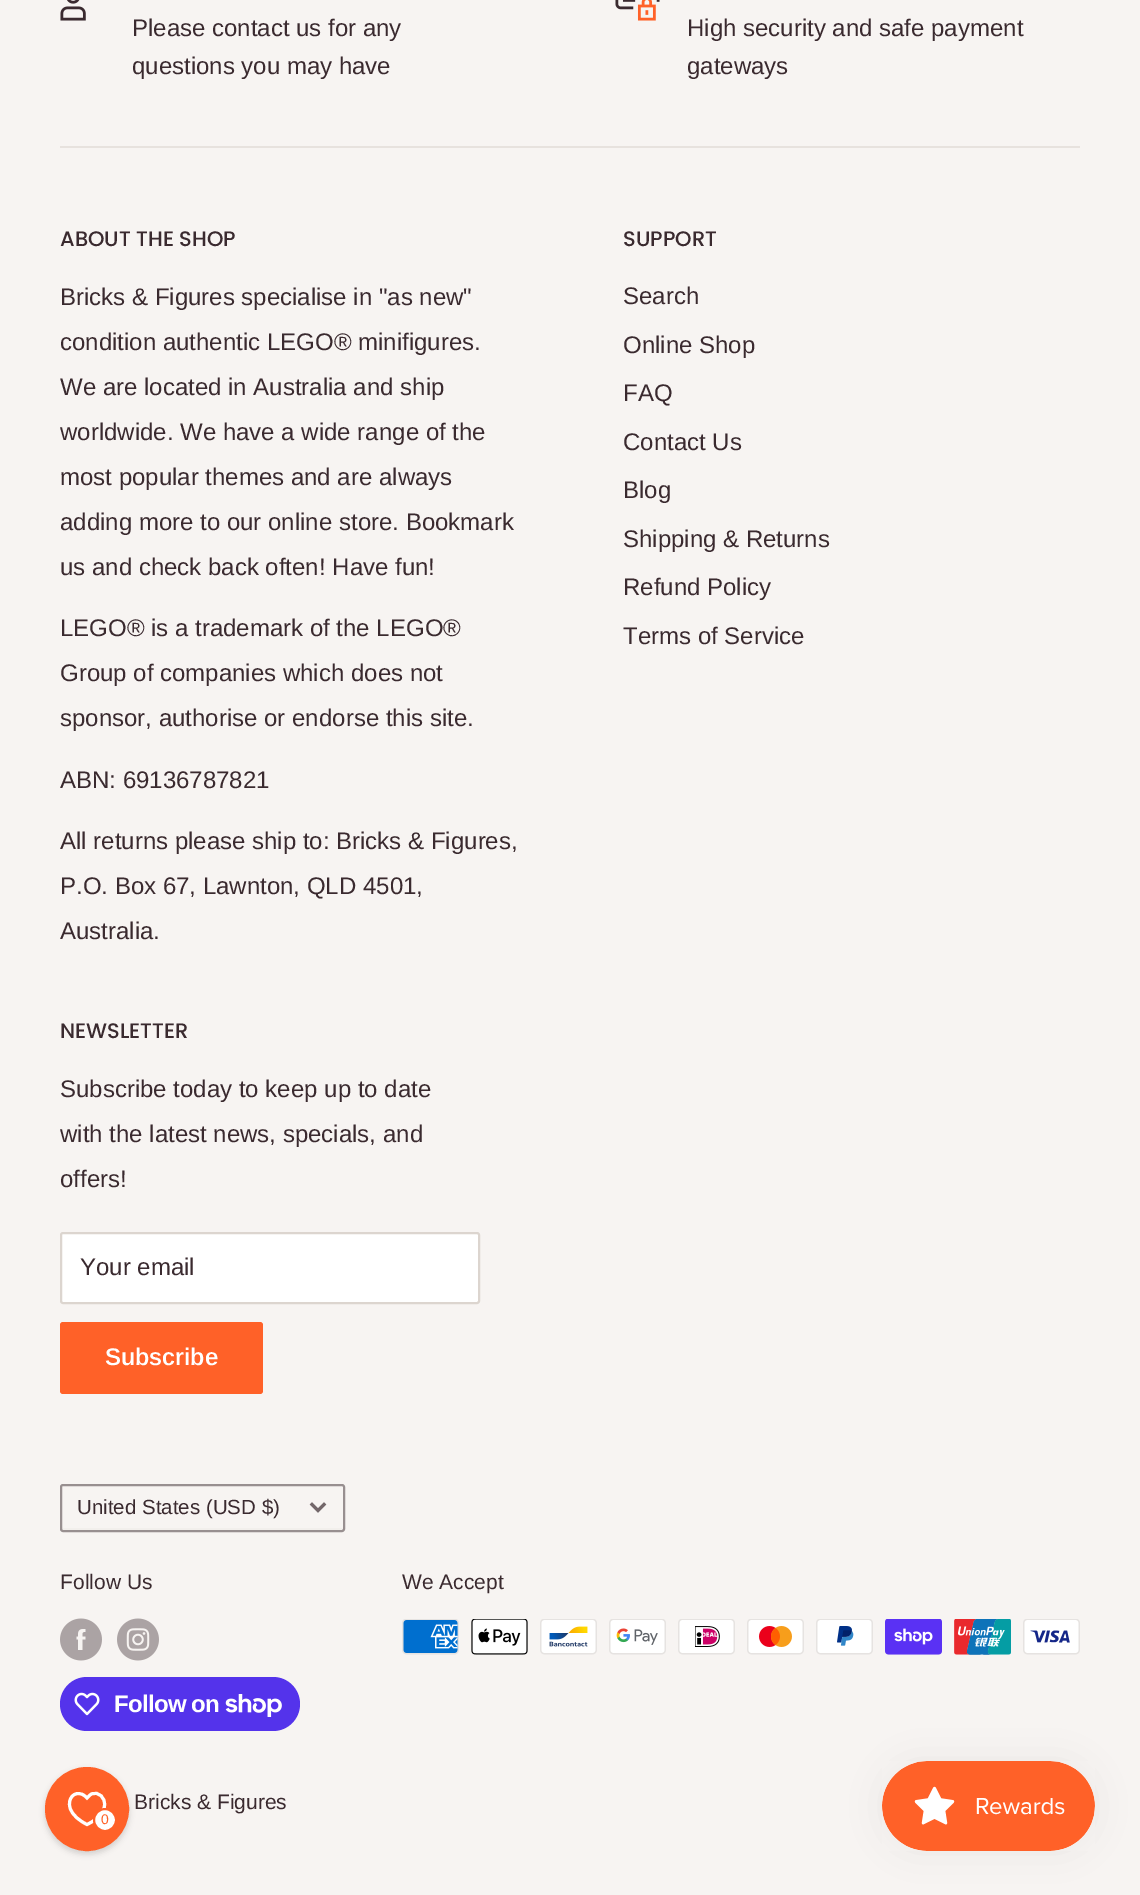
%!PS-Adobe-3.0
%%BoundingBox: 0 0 1140 1895
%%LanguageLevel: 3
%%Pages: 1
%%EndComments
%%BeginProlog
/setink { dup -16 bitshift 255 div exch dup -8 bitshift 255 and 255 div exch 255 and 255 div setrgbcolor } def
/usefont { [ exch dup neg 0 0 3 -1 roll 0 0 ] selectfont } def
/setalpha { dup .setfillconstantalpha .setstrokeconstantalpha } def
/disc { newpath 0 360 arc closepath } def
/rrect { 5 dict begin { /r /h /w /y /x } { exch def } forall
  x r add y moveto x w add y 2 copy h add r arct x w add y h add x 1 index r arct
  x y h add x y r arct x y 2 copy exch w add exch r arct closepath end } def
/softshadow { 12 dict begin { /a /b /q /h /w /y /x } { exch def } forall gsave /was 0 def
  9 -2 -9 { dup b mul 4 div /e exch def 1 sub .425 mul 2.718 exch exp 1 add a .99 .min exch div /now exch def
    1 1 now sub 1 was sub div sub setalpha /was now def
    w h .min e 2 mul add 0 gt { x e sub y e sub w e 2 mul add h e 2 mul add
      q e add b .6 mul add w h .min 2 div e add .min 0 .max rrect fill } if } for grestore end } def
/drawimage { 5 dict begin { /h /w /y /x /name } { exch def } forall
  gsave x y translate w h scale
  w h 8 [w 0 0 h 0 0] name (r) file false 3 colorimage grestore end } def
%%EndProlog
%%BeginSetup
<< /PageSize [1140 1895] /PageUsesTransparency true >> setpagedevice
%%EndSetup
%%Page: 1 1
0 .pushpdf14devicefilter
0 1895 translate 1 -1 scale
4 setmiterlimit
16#F7F4F2 setink
0 0 1140 1895 rectfill
(img1.raw) 60 0 26 21 drawimage
/Arimo-Regular 24 usefont
16#3A2A2F setink
132 36 moveto (Please contact us for any) show
132 74 moveto (questions you may have) show
(img2.raw) 615 0 45 21 drawimage
687 36 moveto (High security and safe payment) show
687 74 moveto (gateways) show
16#E7E2DE setink
60 146 1020 2 rectfill
/Poppins-Medium 21 usefont
16#3A2A2F setink
60 246 moveto (ABOUT THE SHOP) show
/Arimo-Regular 24 usefont
[
    [(Bricks & Figures specialise in "as new") 60 305]
    [(condition authentic LEGO® minifigures.) 60 350]
    [(We are located in Australia and ship) 60 395]
    [(worldwide. We have a wide range of the) 60 440]
    [(most popular themes and are always) 60 485]
    [(adding more to our online store. Bookmark) 60 530]
    [(us and check back often! Have fun!) 60 575]
    [(LEGO® is a trademark of the LEGO®) 60 636]
    [(Group of companies which does not) 60 681]
    [(sponsor, authorise or endorse this site.) 60 726]
    [(ABN: 69136787821) 60 788]
    [(All returns please ship to: Bricks & Figures,) 60 849]
    [(P.O. Box 67, Lawnton, QLD 4501,) 60 894]
    [(Australia.) 60 939]
] { aload pop moveto show } forall
/Poppins-Medium 21 usefont
623 246 moveto (SUPPORT) show
/Arimo-Regular 24 usefont
[
    [(Search) 623 304]
    [(Online Shop) 623 353]
    [(FAQ) 623 401]
    [(Contact Us) 623 450]
    [(Blog) 623 498]
    [(Shipping & Returns) 623 547]
    [(Refund Policy) 623 595]
    [(Terms of Service) 623 644]
] { aload pop moveto show } forall
/Poppins-Medium 21 usefont
60 1038 moveto (NEWSLETTER) show
/Arimo-Regular 24 usefont
[
    [(Subscribe today to keep up to date) 60 1097]
    [(with the latest news, specials, and) 60 1142]
    [(offers!) 60 1187]
] { aload pop moveto show } forall
16#FFFFFF setink
61 1233 418 70 2 rrect gsave fill grestore
16#DCD5CF setink
2 setlinewidth
stroke
16#3A2A2F setink
80 1275 moveto (Your email) show
16#FF6128 setink
60 1322 203 72 3 rrect fill
/Arimo-SemiBold 24 usefont
16#FFFFFF setink
105 1365 moveto (Subscribe) show
16#F2EFEC setink
62 1527 moveto 62 1528 62 1530 64 1530 curveto 342 1530 lineto 344 1530 lineto 344 1527 lineto 344 1528 343 1528 342 1528 curveto 63 1528 lineto 62 1528 62 1528 62 1527 curveto closepath fill
0.5 setalpha
16#3A2A2F setink
61 1485 283 46 2 rrect stroke
/Arimo-Regular 20.5 usefont
1 setalpha
77 1514 moveto (United States \(USD $\)) show
16#73676A setink
3 setlinewidth
2 setlinecap
324 1504.5 moveto 318 1510.5 lineto 312 1504.5 lineto stroke
/Arimo-Regular 21 usefont
16#3A2A2F setink
60 1589 moveto (Follow Us) show
(img3.raw) 60 1618 42 43 drawimage
(img4.raw) 117 1618 42 43 drawimage
16#5433EB setink
60 1677 240 54 27 rrect fill
(img5.raw) 74 1692 26 24 drawimage
/LiberationSans-Bold 24 usefont
16#FFFFFF setink
114 1712 moveto -0.75 0 (Follow on) ashow
(img6.raw) 225 1694 57 23 drawimage
/Arimo-Regular 21 usefont
16#3A2A2F setink
402 1589 moveto (We Accept) show
(img7.raw) 402 1619 57 36 drawimage
(img8.raw) 471 1619 57 36 drawimage
(img9.raw) 540 1619 57 36 drawimage
(img10.raw) 609 1619 57 36 drawimage
(img11.raw) 678 1619 57 36 drawimage
(img12.raw) 747 1619 57 36 drawimage
(img13.raw) 816 1619 57 36 drawimage
(img14.raw) 885 1619 57 36 drawimage
(img15.raw) 954 1619 57 36 drawimage
(img16.raw) 1023 1619 57 36 drawimage
134 1809 moveto (Bricks & Figures) show
16#000000 setink
882 1761 213 90 45 19 0.05 softshadow
(img17.raw) 882 1761 213 90 drawimage
45 1770 84 84 42 3 0.15 softshadow
16#FF6128 setink
87 1809 40.5 disc gsave fill grestore
0 setlinecap
stroke
16#FFFFFF setink
87 1824.5 moveto 80 1821 72 1815.5 70 1807.5 curveto 67.5 1799.5 73.5 1790.5 82.5 1794.5 curveto 84 1795 85.5 1796.5 87 1798 curveto 88.5 1796.5 89.5 1795 91.5 1794 curveto 99 1791 105.5 1798 104.5 1805.5 curveto 103.5 1814.5 94.5 1821 87 1824.5 curveto closepath stroke
105 1820 11 disc gsave fill grestore
16#FF6128 setink
2 setlinewidth
stroke
/Arimo-Regular 14 usefont
101 1824 moveto (0) show
.poppdf14devicefilter showpage
%%EOF
